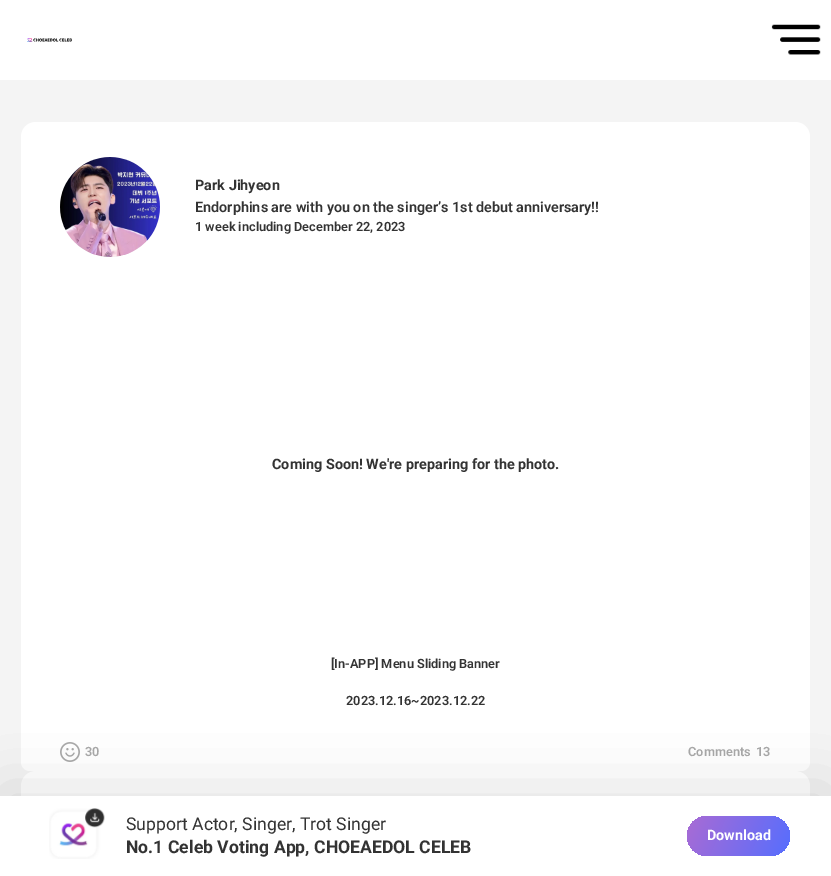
%!PS-Adobe-3.0
%%BoundingBox: 0 0 831 876
%%LanguageLevel: 3
%%Pages: 1
%%EndComments
%%BeginProlog
/setink { dup -16 bitshift 255 div exch dup -8 bitshift 255 and 255 div exch 255 and 255 div setrgbcolor } def
/usefont { [ exch dup neg 0 0 3 -1 roll 0 0 ] selectfont } def
/setalpha { dup .setfillconstantalpha .setstrokeconstantalpha } def
/disc { newpath 0 360 arc closepath } def
/rrect { 5 dict begin { /r /h /w /y /x } { exch def } forall
  x r add y moveto x w add y 2 copy h add r arct x w add y h add x 1 index r arct
  x y h add x y r arct x y 2 copy exch w add exch r arct closepath end } def
/softshadow { 12 dict begin { /a /b /q /h /w /y /x } { exch def } forall gsave /was 0 def
  9 -2 -9 { dup b mul 4 div /e exch def 1 sub .425 mul 2.718 exch exp 1 add a .99 .min exch div /now exch def
    1 1 now sub 1 was sub div sub setalpha /was now def
    w h .min e 2 mul add 0 gt { x e sub y e sub w e 2 mul add h e 2 mul add
      q e add b .6 mul add w h .min 2 div e add .min 0 .max rrect fill } if } for grestore end } def
/drawimage { 5 dict begin { /h /w /y /x /name } { exch def } forall
  gsave x y translate w h scale
  w h 8 [w 0 0 h 0 0] name (r) file false 3 colorimage grestore end } def
%%EndProlog
%%BeginSetup
<< /PageSize [831 876] /PageUsesTransparency true >> setpagedevice
%%EndSetup
%%Page: 1 1
0 .pushpdf14devicefilter
0 876 translate 1 -1 scale
4 setmiterlimit
16#F4F4F4 setink
0 0 831 876 rectfill
16#FFFFFF setink
0 0 831 80 rectfill
(img1.raw) 27 38 45 4 drawimage
(img2.raw) 771 24 50 31 drawimage
36 122 moveto 795 122 lineto 803.5 122 810 128.5 810 137 curveto 810 762 lineto 21 762 lineto 21 137 lineto 21 128.5 27.5 122 36 122 curveto closepath fill
16#EDEDED setink
110 207 50 disc fill
(img3.raw) 60 157 100 100 drawimage
/Roboto-Bold 14.4 usefont
16#333333 setink
195 190 moveto (Park Jihyeon) show
/Roboto-SemiBold 14.4 usefont
195 212 moveto (Endorphins are with you on the singer’s 1st debut anniversary!!) show
/Roboto-SemiBold 12.75 usefont
195 231 moveto (1 week including December 22, 2023) show
/Roboto-Bold 14.4 usefont
272 469 moveto (Coming Soon! We're preparing for the photo.) show
/Roboto-SemiBold 12.75 usefont
331 668 moveto ([In-APP] Menu Sliding Banner) show
346 705 moveto (2023.12.16~2023.12.22) show
(img4.raw) 60 742 20 20 drawimage
16#AAAAAA setink
[
    [(30) 85 756]
    [(Comments) 688 756]
    [(13) 756 756]
] { aload pop moveto show } forall
16#FFFFFF setink
21 762 moveto 810 762 lineto 810 767 806 771 801 771 curveto 30 771 lineto 25 771 21 767 21 762 curveto closepath fill
21 771 789 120 15 rrect fill
16#000000 setink
0 786 831 80 0 30 0.06 softshadow
0 786 831 80 0 30 0.06 softshadow
16#FFFFFF setink
0 796 831 80 rectfill
(img5.raw) 49 808 56 51 drawimage
/Roboto-Regular 17.6 usefont
16#333333 setink
126 830 moveto (Support Actor, Singer, Trot Singer) show
/Roboto-Bold 17.6 usefont
126 853 moveto (No.1 Celeb Voting App, CHOEAEDOL CELEB) show
gsave 687 816 103 40 20 rrect clip newpath
<< /ShadingType 2 /ColorSpace /DeviceRGB /Coords [688 814 791 858] /Extend [true true] /Function << /FunctionType 2 /Domain [0 1] /C0 [0.663 0.42 0.831] /C1 [0.333 0.431 1] /N 1 >> >> shfill grestore
/Roboto-Bold 14.4 usefont
16#FFFFFF setink
707 840 moveto (Download) show
.poppdf14devicefilter showpage
%%EOF
